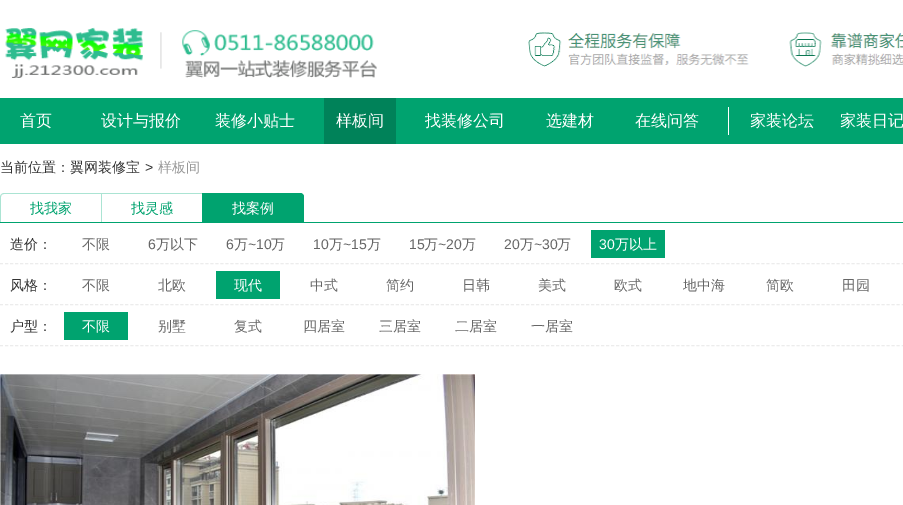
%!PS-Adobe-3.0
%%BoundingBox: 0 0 903 505
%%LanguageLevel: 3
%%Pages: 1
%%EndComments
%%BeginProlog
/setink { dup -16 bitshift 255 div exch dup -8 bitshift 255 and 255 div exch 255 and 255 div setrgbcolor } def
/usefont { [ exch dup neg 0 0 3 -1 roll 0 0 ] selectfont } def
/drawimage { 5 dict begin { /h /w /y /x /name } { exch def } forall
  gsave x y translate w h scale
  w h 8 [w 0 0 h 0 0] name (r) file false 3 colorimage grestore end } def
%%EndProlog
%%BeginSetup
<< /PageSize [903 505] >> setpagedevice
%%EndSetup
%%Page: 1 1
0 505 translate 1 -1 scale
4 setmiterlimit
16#FFFFFF setink
0 0 903 505 rectfill
(img1.raw) 5 27 372 51 drawimage
(img2.raw) 528 32 375 35 drawimage
16#00A36F setink
0 98 903 46 rectfill
/WenQuanYiZenHei-Medium 16 usefont
16#FFFFFF setink
[
    [(首页) 20 126]
    [(设计与报价) 101 126]
    [(装修小贴士) 215 126]
] { aload pop moveto show } forall
16#008259 setink
324 98 72 46 rectfill
16#FFFFFF setink
[
    [(样板间) 336 126]
    [(找装修公司) 425 126]
    [(选建材) 546 126]
    [(在线问答) 635 126]
] { aload pop moveto show } forall
728 107 1 28 rectfill
750 126 moveto (家装论坛) show
840 126 moveto (家装日记) show
/WenQuanYiZenHei-Medium 14 usefont
16#333333 setink
0 172 moveto (当前位置：翼网装修宝) show
/LiberationSans-Regular 14 usefont
145 172 moveto (>) show
/WenQuanYiZenHei-Medium 14 usefont
16#999999 setink
158 172 moveto (样板间) show
16#00A36F setink
0 222 903 1 rectfill
16#ABE4D3 setink
4 193 moveto 102 193 lineto 102 222 lineto 0 222 lineto 0 197 lineto 0 195 2 193 4 193 curveto closepath 4 194 moveto 101 194 lineto 101 222 lineto 1 222 lineto 1 197 lineto 1 195 2 194 4 194 curveto closepath eofill
16#00A36F setink
30 213 moveto (找我家) show
16#ABE4D3 setink
101 193 102 1 rectfill
16#00A36F setink
131 213 moveto (找灵感) show
202 193 moveto 300 193 lineto 302 193 304 195 304 197 curveto 304 222 lineto 202 222 lineto closepath fill
202 193 moveto 300 193 lineto 302 193 304 195 304 197 curveto 304 222 lineto 202 222 lineto closepath 203 194 moveto 300 194 lineto 302 194 303 195 303 197 curveto 303 222 lineto 203 222 lineto closepath eofill
16#FFFFFF setink
232 213 moveto (找案例) show
16#ECECEC setink
[3 2.01] 0 setdash
0 263.5 moveto 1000 263.5 lineto stroke
16#333333 setink
10 249 moveto (造价：) show
16#666666 setink
82 249 moveto (不限) show
/LiberationSans-Regular 14 usefont
148 249 moveto (6) show
/WenQuanYiZenHei-Medium 14 usefont
156 249 moveto (万以下) show
/LiberationSans-Regular 14 usefont
226 249 moveto (6) show
/WenQuanYiZenHei-Medium 14 usefont
234 249 moveto (万) show
/LiberationSans-Regular 14 usefont
248 249 moveto (~10) show
/WenQuanYiZenHei-Medium 14 usefont
271 249 moveto (万) show
/LiberationSans-Regular 14 usefont
313 249 moveto (10) show
/WenQuanYiZenHei-Medium 14 usefont
329 249 moveto (万) show
/LiberationSans-Regular 14 usefont
343 249 moveto (~15) show
/WenQuanYiZenHei-Medium 14 usefont
367 249 moveto (万) show
/LiberationSans-Regular 14 usefont
409 249 moveto (15) show
/WenQuanYiZenHei-Medium 14 usefont
424 249 moveto (万) show
/LiberationSans-Regular 14 usefont
438 249 moveto (~20) show
/WenQuanYiZenHei-Medium 14 usefont
462 249 moveto (万) show
/LiberationSans-Regular 14 usefont
504 249 moveto (20) show
/WenQuanYiZenHei-Medium 14 usefont
520 249 moveto (万) show
/LiberationSans-Regular 14 usefont
534 249 moveto (~30) show
/WenQuanYiZenHei-Medium 14 usefont
557 249 moveto (万) show
16#00A36F setink
591 230 74 28 rectfill
/LiberationSans-Regular 14 usefont
16#FFFFFF setink
599 249 moveto (30) show
/WenQuanYiZenHei-Medium 14 usefont
615 249 moveto (万以上) show
16#ECECEC setink
0 304.5 moveto 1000 304.5 lineto stroke
16#333333 setink
10 290 moveto (风格：) show
16#666666 setink
82 290 moveto (不限) show
158 290 moveto (北欧) show
16#00A36F setink
216 271 64 28 rectfill
16#FFFFFF setink
234 290 moveto (现代) show
16#666666 setink
[
    [(中式) 310 290]
    [(简约) 386 290]
    [(日韩) 462 290]
    [(美式) 538 290]
    [(欧式) 614 290]
    [(地中海) 683 290]
    [(简欧) 766 290]
    [(田园) 842 290]
] { aload pop moveto show } forall
16#ECECEC setink
0 345.5 moveto 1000 345.5 lineto stroke
16#333333 setink
10 331 moveto (户型：) show
16#00A36F setink
64 312 64 28 rectfill
16#FFFFFF setink
82 331 moveto (不限) show
16#666666 setink
[
    [(别墅) 158 331]
    [(复式) 234 331]
    [(四居室) 303 331]
    [(三居室) 379 331]
    [(二居室) 455 331]
    [(一居室) 531 331]
] { aload pop moveto show } forall
(img3.raw) 0 374 475 131 drawimage
showpage
%%EOF
